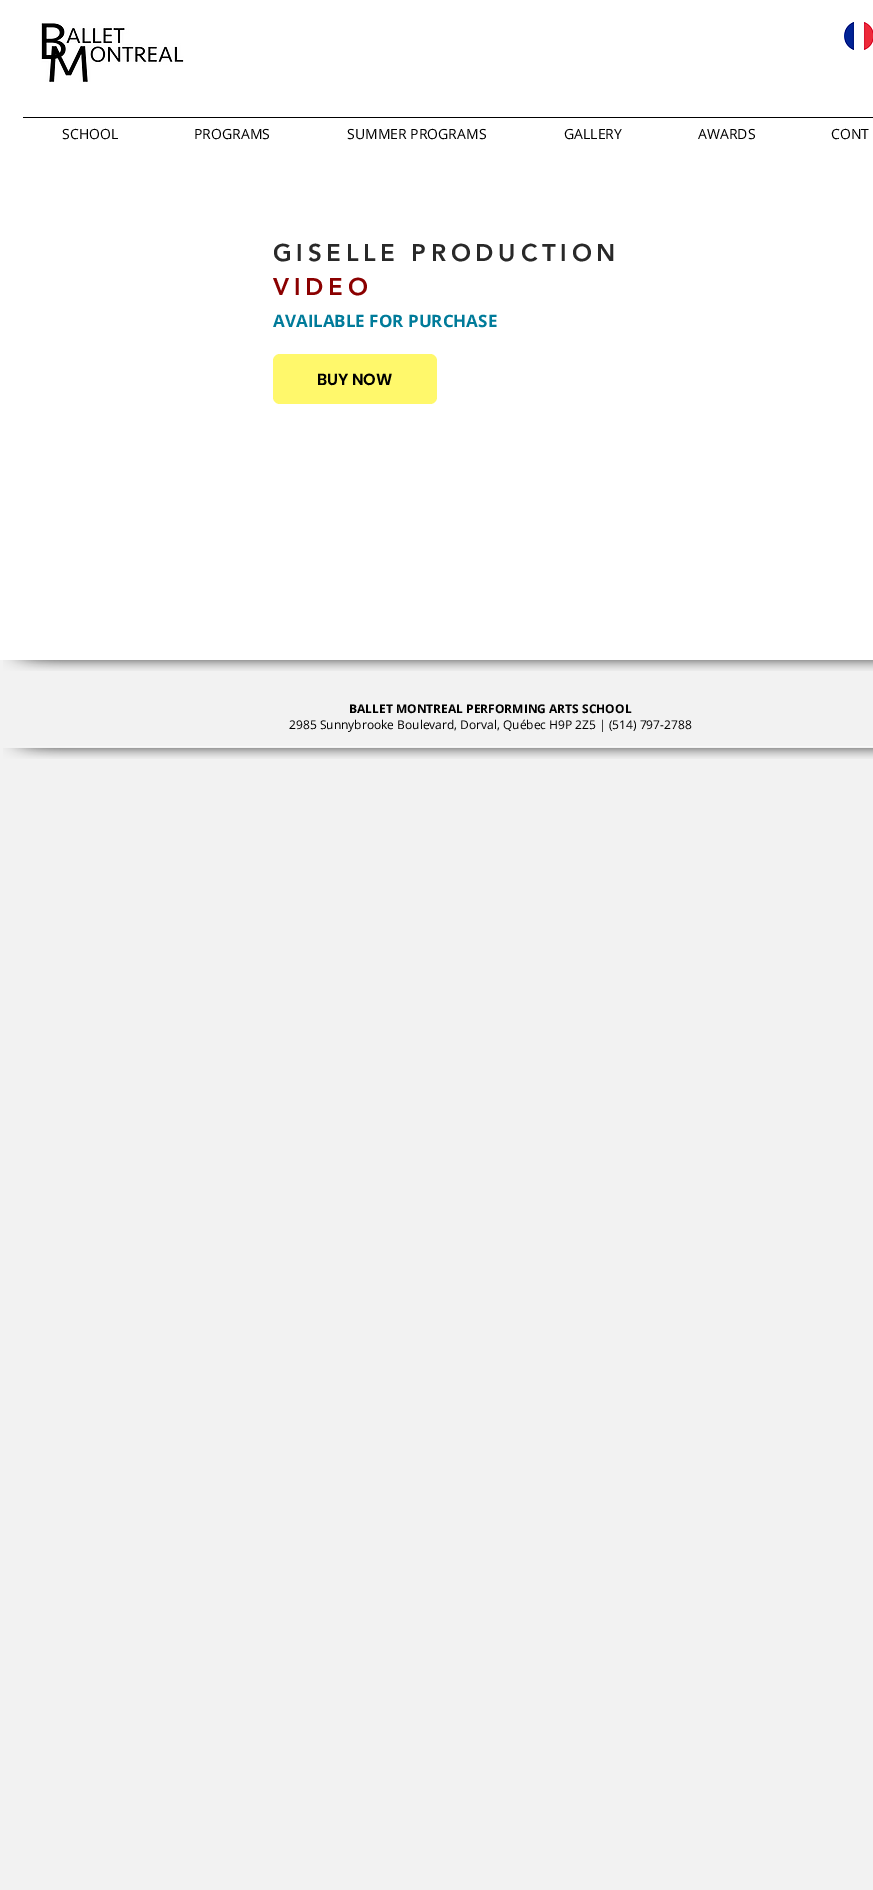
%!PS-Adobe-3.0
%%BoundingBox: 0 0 873 1890
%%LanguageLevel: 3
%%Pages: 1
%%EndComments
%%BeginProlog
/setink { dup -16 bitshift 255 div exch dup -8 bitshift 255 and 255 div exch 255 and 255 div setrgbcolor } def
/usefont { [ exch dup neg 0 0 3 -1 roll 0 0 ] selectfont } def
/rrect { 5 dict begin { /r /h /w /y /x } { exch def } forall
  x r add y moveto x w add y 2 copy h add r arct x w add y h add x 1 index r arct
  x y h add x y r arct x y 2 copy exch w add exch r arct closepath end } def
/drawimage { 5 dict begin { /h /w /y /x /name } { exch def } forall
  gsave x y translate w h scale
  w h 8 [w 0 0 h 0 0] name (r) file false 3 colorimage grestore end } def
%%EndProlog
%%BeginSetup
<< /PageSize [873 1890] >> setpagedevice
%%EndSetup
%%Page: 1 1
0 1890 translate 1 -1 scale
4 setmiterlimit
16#F2F2F2 setink
0 0 873 1890 rectfill
16#FFFFFF setink
0 0 873 660 rectfill
(img1.raw) 41 23 143 59 drawimage
(img2.raw) 844 22 29 28 drawimage
16#000000 setink
23 117 850 1 rectfill
/OpenSans-Regular 14 usefont
[
    [(SCHOOL) 62 139]
    [(PROGRAMS) 194 139]
    [(SUMMER PROGRAMS) 347 139]
    [(GALLERY) 564 139]
    [(AWARDS) 698 139]
    [(CONT) 831 139]
] { aload pop moveto show } forall
/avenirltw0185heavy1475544-Black 24 usefont
16#292929 setink
273 261 moveto 4.75 0 (GISELLE PRODUCTION) ashow
16#8B0000 setink
273 295 moveto 4.75 0 (VIDEO) ashow
/OpenSans-Bold 17 usefont
16#007B9A setink
273 327 moveto (AVAILABLE FOR PURCHASE) show
16#FFF86B setink
273 354 164 50 7 rrect fill
/Poppins-SemiBold 16 usefont
16#000000 setink
317 385 moveto (BUY NOW) show
(img3.raw) 3 660 97 11 drawimage
(img4.raw) 100 660 773 11 drawimage
/OpenSans-Bold 12 usefont
349 713 moveto (BALLET MONTREAL PERFORMING ARTS SCHOOL) show
/OpenSans-Regular 12 usefont
289 729 moveto (2985 Sunnybrooke Boulevard, Dorval, Québec H9P 2Z5 | \(514\) 797-2788) show
(img5.raw) 3 746 97 13 drawimage
(img6.raw) 100 746 773 13 drawimage
showpage
%%EOF
